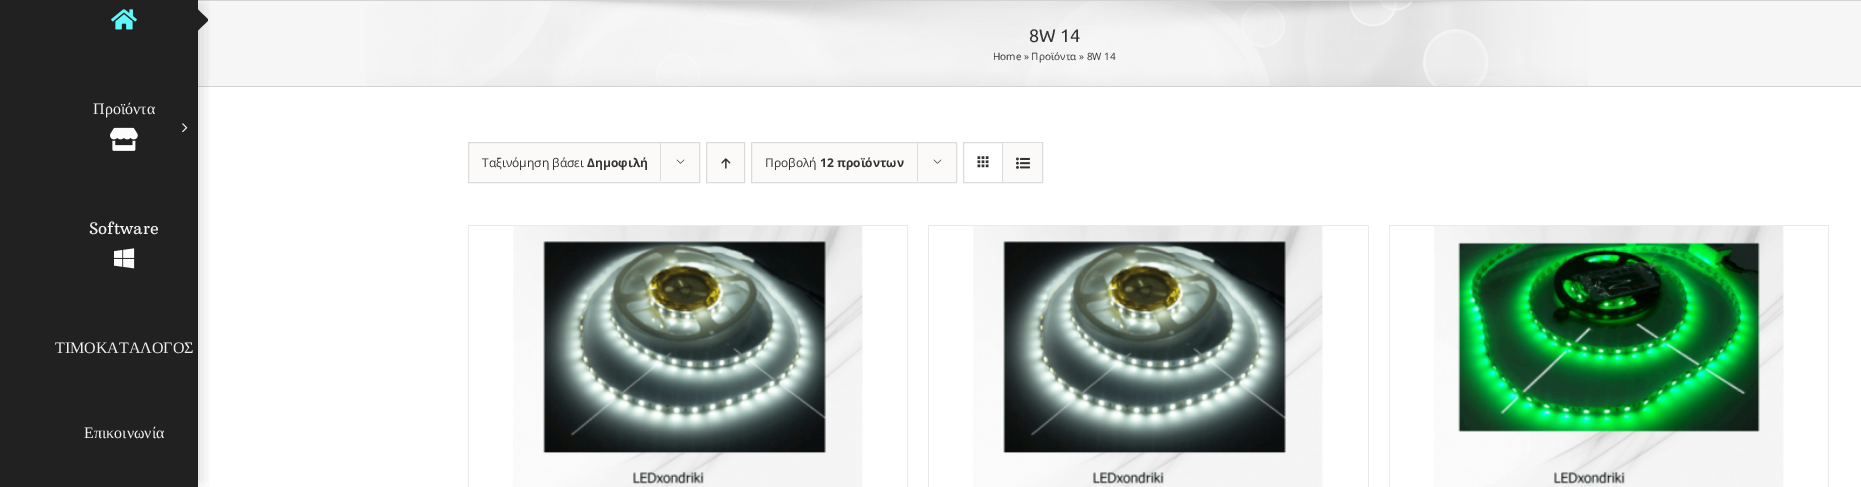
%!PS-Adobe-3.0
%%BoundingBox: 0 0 1861 487
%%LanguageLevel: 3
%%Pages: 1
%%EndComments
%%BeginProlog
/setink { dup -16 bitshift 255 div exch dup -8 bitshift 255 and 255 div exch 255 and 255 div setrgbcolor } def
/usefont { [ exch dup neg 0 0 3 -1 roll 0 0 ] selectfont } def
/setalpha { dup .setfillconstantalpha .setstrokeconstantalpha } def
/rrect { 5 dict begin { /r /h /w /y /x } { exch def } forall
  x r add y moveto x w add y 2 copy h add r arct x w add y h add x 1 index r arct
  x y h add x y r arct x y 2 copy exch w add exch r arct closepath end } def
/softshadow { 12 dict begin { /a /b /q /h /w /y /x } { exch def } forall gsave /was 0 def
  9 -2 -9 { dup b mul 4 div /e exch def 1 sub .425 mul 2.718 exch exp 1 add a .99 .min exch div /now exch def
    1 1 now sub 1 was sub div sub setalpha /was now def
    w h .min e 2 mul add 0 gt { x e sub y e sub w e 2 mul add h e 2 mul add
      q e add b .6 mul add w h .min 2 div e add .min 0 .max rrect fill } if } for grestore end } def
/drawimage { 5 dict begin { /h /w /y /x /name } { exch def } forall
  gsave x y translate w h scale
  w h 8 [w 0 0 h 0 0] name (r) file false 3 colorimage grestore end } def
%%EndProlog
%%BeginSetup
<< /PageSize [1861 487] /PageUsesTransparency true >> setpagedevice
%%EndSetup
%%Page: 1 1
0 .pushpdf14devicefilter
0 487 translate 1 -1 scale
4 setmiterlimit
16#FFFFFF setink
0 0 1861 487 rectfill
16#F6F6F6 setink
198 1 1663 85 rectfill
(img1.raw) 366 1 1222 85 drawimage
16#D2D3D4 setink
198 0 1663 1 rectfill
198 86 1663 1 rectfill
/Ubuntu-Regular 18 usefont
16#333333 setink
1029 42 moveto (8W 14) show
/OpenSans-Regular 10 usefont
993 60 moveto (Home » Προϊόντα » 8W 14) show
16#212121 setink
0 0 198 487 rectfill
gsave
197 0 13 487 rectclip
16#000000 setink
187 5 15 477 0 7.5 0.14 softshadow
grestore
197 65 1 1 rectfill
(img2.raw) 111 9 26 21 drawimage
gsave
197 9 11 23 rectclip
196 8.5 moveto 208 20 lineto 196 31.5 lineto closepath gsave fill grestore
stroke
grestore
197 185 1 1 rectfill
/LiberationSerif-Regular 16 usefont
16#F2EFEF setink
93 114 moveto (Προϊόντα) show
(img3.raw) 110 127 28 24 drawimage
(img4.raw) 182 123 6 10 drawimage
16#212121 setink
197 304 1 1 rectfill
/ArbutusSlab-Regular 16 usefont
16#F2EFEF setink
89 234 moveto (Software) show
(img5.raw) 114 248 21 21 drawimage
16#212121 setink
197 389 1 1 rectfill
/LiberationSerif-Regular 16 usefont
16#F2EFEF setink
55 353 moveto (ΤΙΜΟΚΑΤΑΛΟΓΟΣ) show
84 438 moveto (Επικοινωνία) show
16#FBFAF9 setink
468.5 142.5 moveto 699.5 142.5 lineto 699.5 182.5 lineto 468.5 182.5 lineto closepath gsave fill grestore
16#DBDBDB setink
stroke
/OpenSans-Regular 12 usefont
16#333333 setink
482 167 moveto (Ταξινόμηση βάσει) show
/OpenSans-Bold 12 usefont
587 167 moveto (Δημοφιλή) show
16#DBDBDB setink
660 142 1 39 rectfill
(img6.raw) 676 159 9 5 drawimage
16#FBFAF9 setink
706.5 142.5 moveto 744.5 142.5 lineto 744.5 182.5 lineto 706.5 182.5 lineto closepath gsave fill grestore
16#DBDBDB setink
stroke
(img7.raw) 721 158 10 11 drawimage
16#FBFAF9 setink
751.5 142.5 moveto 956.5 142.5 lineto 956.5 182.5 lineto 751.5 182.5 lineto closepath gsave fill grestore
16#DBDBDB setink
stroke
/OpenSans-Regular 12 usefont
16#333333 setink
765 167 moveto (Προβολή) show
/OpenSans-Bold 12 usefont
820 167 moveto (12 προϊόντων) show
16#DBDBDB setink
917 142 1 39 rectfill
(img6.raw) 933 159 9 5 drawimage
963.5 142.5 79 40 rectstroke
1002 143 1 39 rectfill
(img8.raw) 977 156 12 12 drawimage
16#FBFAF9 setink
1003 143 39 39 rectfill
(img9.raw) 1016 157 14 12 drawimage
[
    [468 225 440 1 16#EBEAEA]
    [907 225 1 262 16#EBEAEA]
    [468 225 1 262 16#EBEAEA]
] { aload pop setink rectfill } forall
(img10.raw) 513 226 350 261 drawimage
[
    [928 225 441 1 16#EBEAEA]
    [1368 225 1 262 16#EBEAEA]
    [928 225 1 262 16#EBEAEA]
] { aload pop setink rectfill } forall
(img11.raw) 973 226 350 261 drawimage
[
    [1389 225 440 1 16#EBEAEA]
    [1828 225 1 262 16#EBEAEA]
    [1389 225 1 262 16#EBEAEA]
] { aload pop setink rectfill } forall
(img12.raw) 1434 226 350 261 drawimage
.poppdf14devicefilter showpage
%%EOF
